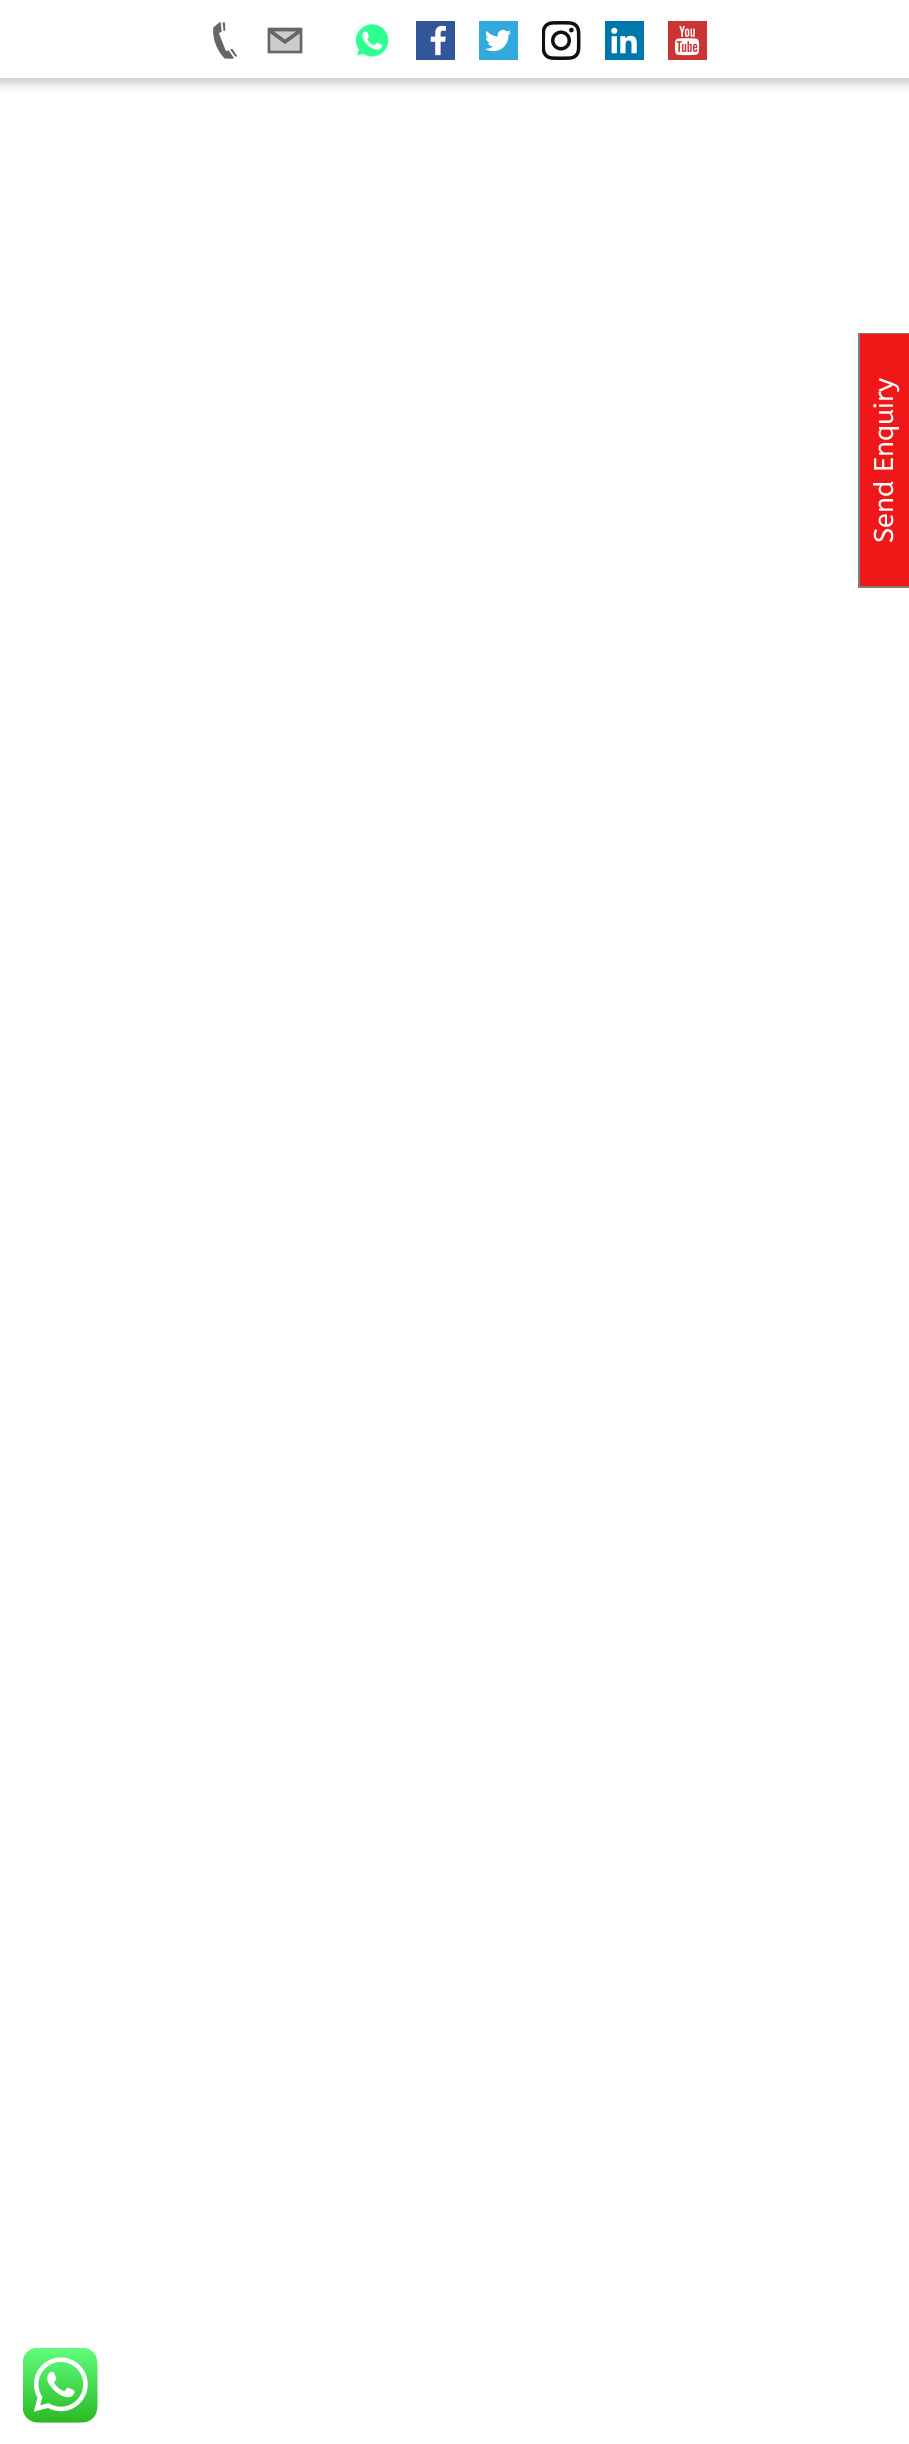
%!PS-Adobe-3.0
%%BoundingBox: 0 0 909 2444
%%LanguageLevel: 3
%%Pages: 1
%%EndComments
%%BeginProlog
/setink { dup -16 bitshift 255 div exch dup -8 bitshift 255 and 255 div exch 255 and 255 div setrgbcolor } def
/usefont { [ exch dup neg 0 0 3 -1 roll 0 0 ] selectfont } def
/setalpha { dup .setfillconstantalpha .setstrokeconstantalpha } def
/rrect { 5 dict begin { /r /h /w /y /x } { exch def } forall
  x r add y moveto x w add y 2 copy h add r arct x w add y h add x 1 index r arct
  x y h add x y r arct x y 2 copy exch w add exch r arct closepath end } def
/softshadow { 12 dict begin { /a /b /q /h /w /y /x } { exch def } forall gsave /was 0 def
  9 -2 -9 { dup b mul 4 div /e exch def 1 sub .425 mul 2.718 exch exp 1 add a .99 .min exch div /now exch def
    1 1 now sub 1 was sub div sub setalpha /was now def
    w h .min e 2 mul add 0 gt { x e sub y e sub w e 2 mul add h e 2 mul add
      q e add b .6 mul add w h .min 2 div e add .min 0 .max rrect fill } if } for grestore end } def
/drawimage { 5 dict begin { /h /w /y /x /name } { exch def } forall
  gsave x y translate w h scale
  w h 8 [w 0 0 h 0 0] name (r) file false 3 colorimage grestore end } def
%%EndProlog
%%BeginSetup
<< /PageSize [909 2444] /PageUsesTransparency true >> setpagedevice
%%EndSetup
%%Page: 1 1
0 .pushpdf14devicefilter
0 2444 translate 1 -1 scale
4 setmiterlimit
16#FFFFFF setink
0 0 909 2444 rectfill
gsave
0 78 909 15 rectclip
16#CCCCCC setink
-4 -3 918 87 0 4.5 1 softshadow
grestore
(img1.raw) 213 22 24 37 drawimage
(img2.raw) 267 27 36 27 drawimage
(img3.raw) 352 21 40 39 drawimage
(img4.raw) 416 21 39 39 drawimage
(img5.raw) 479 21 39 39 drawimage
(img6.raw) 542 21 39 39 drawimage
(img7.raw) 605 21 39 39 drawimage
(img8.raw) 668 21 39 39 drawimage
[
    [860 334 49 252 16#EF1717]
    [858 333 2 255 16#7F7F7F]
    [858 333 51 1 16#7F7F7F]
    [858 586 51 2 16#7F7F7F]
] { aload pop setink rectfill } forall
/ABeeZee-Regular 27 usefont
16#FFFFFF setink
gsave 893 543 translate -90 rotate 0 0 moveto (Send Enquiry) show grestore
(img9.raw) 23 2348 75 75 drawimage
.poppdf14devicefilter showpage
%%EOF
